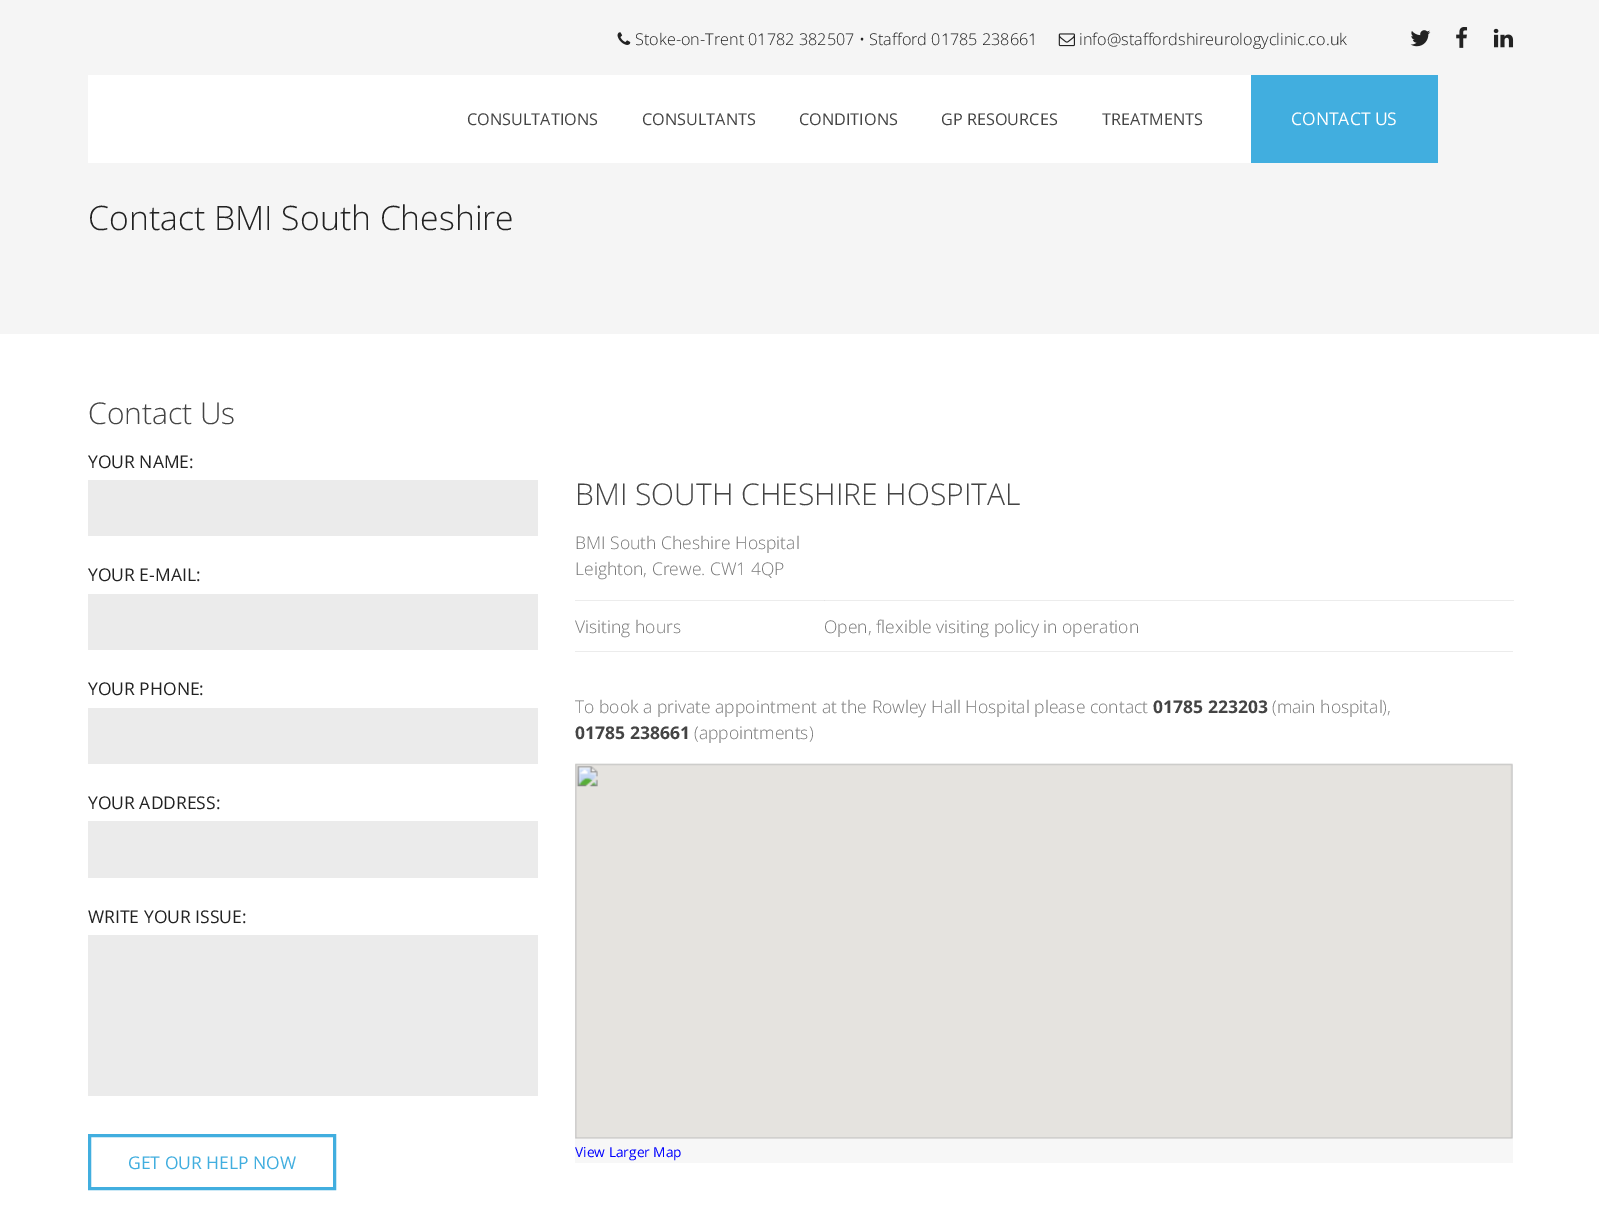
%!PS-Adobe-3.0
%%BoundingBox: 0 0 1599 1215
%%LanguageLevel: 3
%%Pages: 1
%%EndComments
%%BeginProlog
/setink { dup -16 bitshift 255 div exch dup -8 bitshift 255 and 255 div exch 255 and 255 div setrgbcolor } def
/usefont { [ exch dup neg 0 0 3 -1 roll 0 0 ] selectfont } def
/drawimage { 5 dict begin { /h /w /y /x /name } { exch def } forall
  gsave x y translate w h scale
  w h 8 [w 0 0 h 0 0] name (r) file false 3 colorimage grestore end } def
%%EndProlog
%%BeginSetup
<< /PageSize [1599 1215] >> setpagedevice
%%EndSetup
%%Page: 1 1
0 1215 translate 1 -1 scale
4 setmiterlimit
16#FFFFFF setink
0 0 1599 1215 rectfill
16#ECECEC setink
575 600 939 1 rectfill
16#F5F5F5 setink
0 0 1599 334 rectfill
(img1.raw) 617 32 14 13 drawimage
/OpenSans-Light 16.25 usefont
16#222222 setink
635 45 moveto (Stoke-on-Trent 01782 382507 • Stafford 01785 238661) show
(img2.raw) 1058 33 17 14 drawimage
1079 45 moveto (info@staffordshireurologyclinic.co.uk) show
(img3.raw) 1410 30 21 17 drawimage
(img4.raw) 1456 27 12 21 drawimage
(img5.raw) 1493 28 21 20 drawimage
/OpenSans-Light 33.75 usefont
88 230 moveto (Contact BMI South Cheshire) show
16#FFFFFF setink
88 75 1163 88 rectfill
/OpenSans-Regular 16.25 usefont
16#444444 setink
[
    [(CONSULTATIONS) 467 125]
    [(CONSULTANTS) 642 125]
    [(CONDITIONS) 799 125]
    [(GP RESOURCES) 941 125]
    [(TREATMENTS) 1102 125]
] { aload pop moveto show } forall
16#41AEDF setink
1251 75 187 88 rectfill
/OpenSans-Regular 17.5 usefont
16#FFFFFF setink
1291 125 moveto (CONTACT US) show
/OpenSans-Light 30 usefont
16#444444 setink
88 424 moveto (Contact Us) show
/OpenSans-Regular 17.5 usefont
16#222222 setink
88 468 moveto (YOUR NAME:) show
16#EBEBEB setink
88 480 450 56 rectfill
16#222222 setink
88 581 moveto (YOUR E-MAIL:) show
16#EBEBEB setink
88 594 450 56 rectfill
16#222222 setink
88 695 moveto (YOUR PHONE:) show
16#EBEBEB setink
88 708 450 56 rectfill
16#222222 setink
88 809 moveto (YOUR ADDRESS:) show
16#EBEBEB setink
88 821 450 57 rectfill
16#222222 setink
88 923 moveto (WRITE YOUR ISSUE:) show
16#EBEBEB setink
88 935 450 161 rectfill
16#41AEDF setink
3 setlinewidth
89.5 1135.5 245 53 rectstroke
128 1169 moveto (GET OUR HELP NOW) show
/OpenSans-Light 30 usefont
16#444444 setink
575 505 moveto (BMI SOUTH CHESHIRE HOSPITAL) show
/OpenSans-Light 17.5 usefont
16#777777 setink
575 549 moveto (BMI South Cheshire Hospital) show
575 575 moveto (Leighton, Crewe. CW1 4QP) show
16#ECECEC setink
575 651 938 1 rectfill
16#777777 setink
575 633 moveto (Visiting hours) show
16#E2E2E2 setink
824 600 1 1 rectfill
16#777777 setink
824 633 moveto (Open, flexible visiting policy in operation) show
575 713 moveto (To book a private appointment at the Rowley Hall Hospital please contact) show
/OpenSans-Bold 17.5 usefont
16#444444 setink
1153 713 moveto (01785 223203) show
/OpenSans-Light 17.5 usefont
16#777777 setink
1272 713 moveto (\(main hospital\),) show
/OpenSans-Bold 17.5 usefont
16#444444 setink
575 739 moveto (01785 238661) show
/OpenSans-Light 17.5 usefont
16#777777 setink
694 739 moveto (\(appointments\)) show
16#F7F7F7 setink
575 764 938 399 rectfill
(img6.raw) 575 763 938 376 drawimage
/OpenSans-Regular 13.75 usefont
16#0000FF setink
575 1157 moveto (View Larger Map) show
showpage
%%EOF
